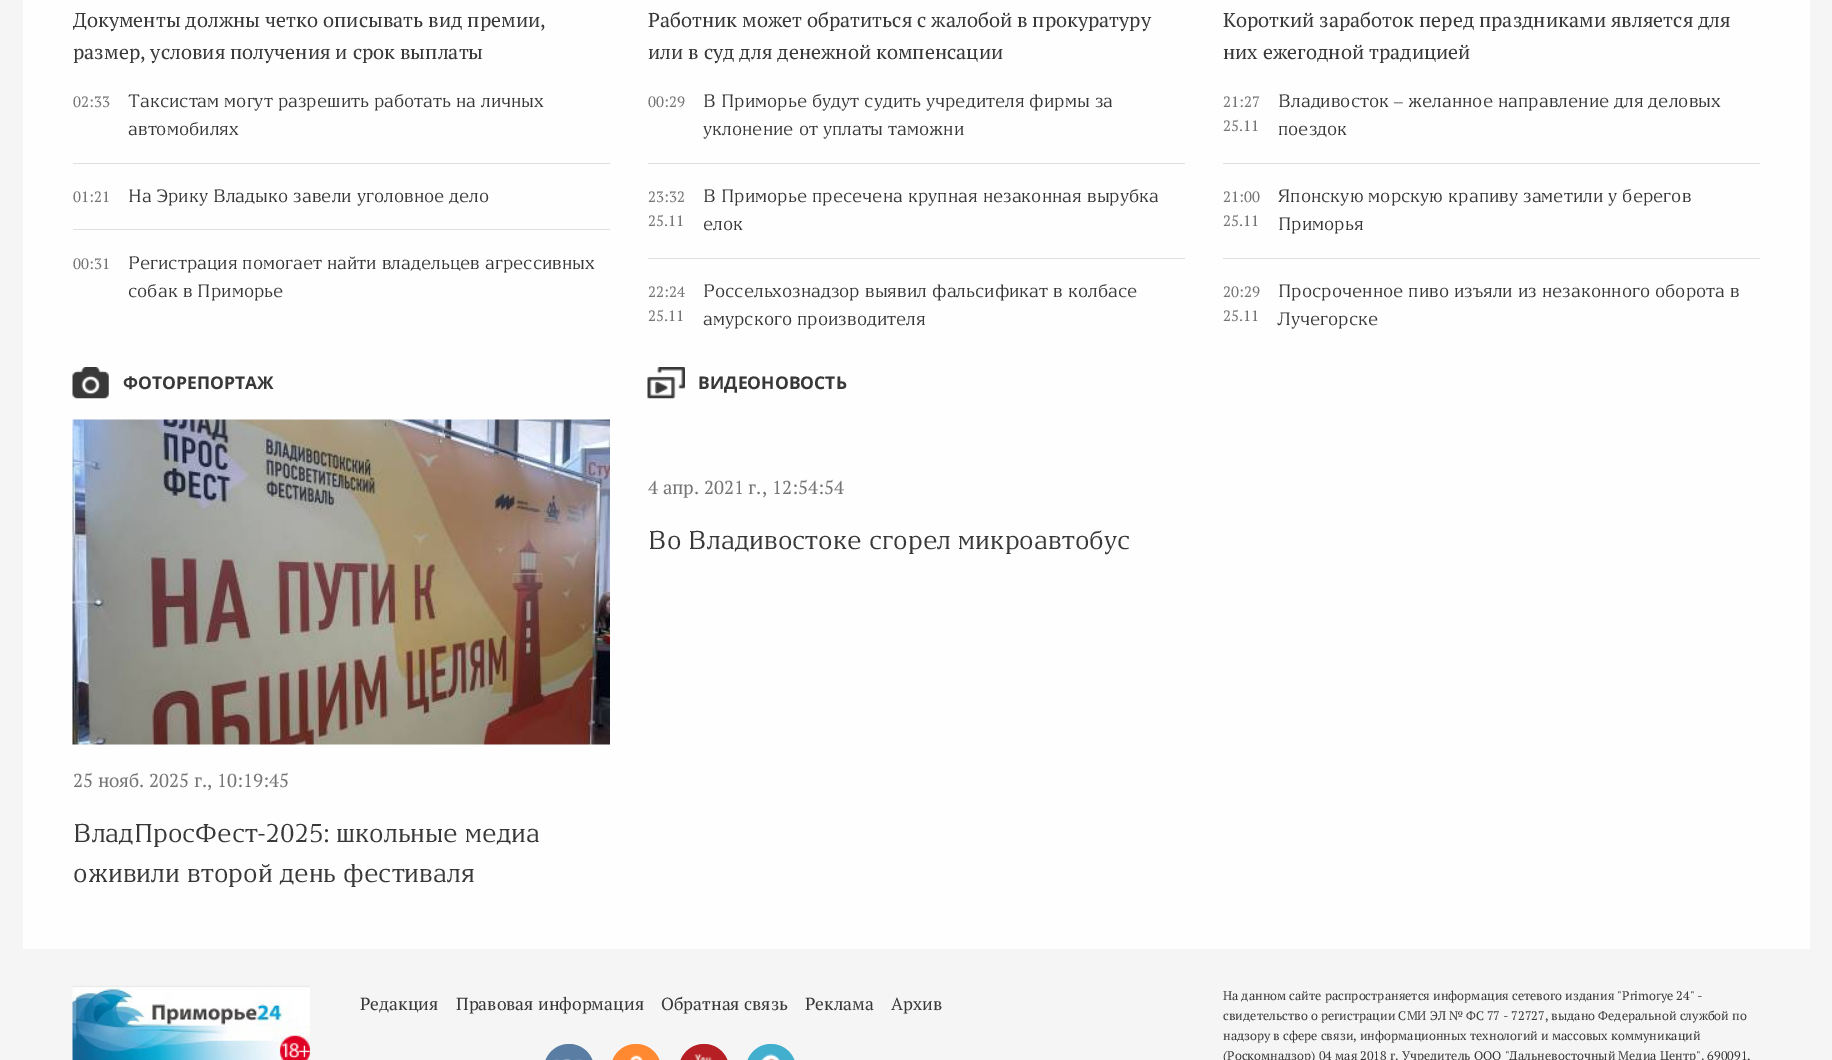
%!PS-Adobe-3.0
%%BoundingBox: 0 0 1832 1060
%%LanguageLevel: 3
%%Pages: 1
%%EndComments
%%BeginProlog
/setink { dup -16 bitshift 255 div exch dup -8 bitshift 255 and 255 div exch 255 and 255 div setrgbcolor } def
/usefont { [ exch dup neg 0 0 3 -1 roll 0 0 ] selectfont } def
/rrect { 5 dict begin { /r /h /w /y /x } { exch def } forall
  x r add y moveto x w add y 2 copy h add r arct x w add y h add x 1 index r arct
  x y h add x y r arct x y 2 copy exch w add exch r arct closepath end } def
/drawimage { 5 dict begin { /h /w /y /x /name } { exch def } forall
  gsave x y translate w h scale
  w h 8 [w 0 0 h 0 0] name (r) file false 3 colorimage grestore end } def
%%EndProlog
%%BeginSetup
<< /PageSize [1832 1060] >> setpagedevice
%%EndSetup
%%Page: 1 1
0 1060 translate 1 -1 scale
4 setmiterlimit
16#F5F5F5 setink
0 0 1832 1060 rectfill
16#FEFEFE setink
23 0 1787 949 rectfill
/PTSerif-Regular 20 usefont
16#383838 setink
[
    [(Документы должны четко описывать вид премии,) 73 27]
    [(размер, условия получения и срок выплаты) 73 59]
    [(Работник может обратиться с жалобой в прокуратуру) 648 27]
    [(или в суд для денежной компенсации) 648 59]
    [(Короткий заработок перед праздниками является для) 1223 27]
    [(них ежегодной традицией) 1223 59]
] { aload pop moveto show } forall
/PTSerif-Regular 15 usefont
16#757575 setink
73 107 moveto (02:33) show
/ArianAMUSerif-Regular 17.5 usefont
16#383838 setink
128 107 moveto (Таксистам могут разрешить работать на личных) show
128 135 moveto (автомобилях) show
16#E0E0E0 setink
73 163 537 1 rectfill
/PTSerif-Regular 15 usefont
16#757575 setink
73 202 moveto (01:21) show
/ArianAMUSerif-Regular 17.5 usefont
16#383838 setink
128 202 moveto (На Эрику Владыко завели уголовное дело) show
16#E0E0E0 setink
73 229 537 1 rectfill
/PTSerif-Regular 15 usefont
16#757575 setink
73 269 moveto (00:31) show
/ArianAMUSerif-Regular 17.5 usefont
16#383838 setink
128 269 moveto (Регистрация помогает найти владельцев агрессивных) show
128 297 moveto (собак в Приморье) show
/PTSerif-Regular 15 usefont
16#757575 setink
648 107 moveto (00:29) show
/ArianAMUSerif-Regular 17.5 usefont
16#383838 setink
703 107 moveto (В Приморье будут судить учредителя фирмы за) show
703 135 moveto (уклонение от уплаты таможни) show
16#E0E0E0 setink
648 163 537 1 rectfill
/PTSerif-Regular 15 usefont
16#757575 setink
648 202 moveto (23:32) show
648 226 moveto (25.11) show
/ArianAMUSerif-Regular 17.5 usefont
16#383838 setink
703 202 moveto (В Приморье пресечена крупная незаконная вырубка) show
703 230 moveto (елок) show
16#E0E0E0 setink
648 258 537 1 rectfill
/PTSerif-Regular 15 usefont
16#757575 setink
648 297 moveto (22:24) show
648 321 moveto (25.11) show
/ArianAMUSerif-Regular 17.5 usefont
16#383838 setink
703 297 moveto (Россельхознадзор выявил фальсификат в колбасе) show
703 325 moveto (амурского производителя) show
/PTSerif-Regular 15 usefont
16#757575 setink
1223 107 moveto (21:27) show
1223 131 moveto (25.11) show
/ArianAMUSerif-Regular 17.5 usefont
16#383838 setink
1278 107 moveto (Владивосток) show
/LiberationSerif-Regular 17.5 usefont
1394 107 moveto (–) show
/ArianAMUSerif-Regular 17.5 usefont
1408 107 moveto (желанное направление для деловых) show
1278 135 moveto (поездок) show
16#E0E0E0 setink
1223 163 537 1 rectfill
/PTSerif-Regular 15 usefont
16#757575 setink
1223 202 moveto (21:00) show
1223 226 moveto (25.11) show
/ArianAMUSerif-Regular 17.5 usefont
16#383838 setink
1278 202 moveto (Японскую морскую крапиву заметили у берегов) show
1278 230 moveto (Приморья) show
16#E0E0E0 setink
1223 258 537 1 rectfill
/PTSerif-Regular 15 usefont
16#757575 setink
1223 297 moveto (20:29) show
1223 321 moveto (25.11) show
/ArianAMUSerif-Regular 17.5 usefont
16#383838 setink
1278 297 moveto (Просроченное пиво изъяли из незаконного оборота в) show
1278 325 moveto (Лучегорске) show
(img1.raw) 72 367 37 32 drawimage
/OpenSans-Bold 17.5 usefont
123 389 moveto (ФОТОРЕПОРТАЖ) show
(img2.raw) 72 419 538 326 drawimage
/PTSerif-Regular 18.75 usefont
16#757575 setink
73 787 moveto (25 нояб. 2025 г., 10:19:45) show
/ArianAMUSerif-Regular 25 usefont
16#383838 setink
73 842 moveto (ВладПросФест-2025: школьные медиа) show
73 882 moveto (оживили второй день фестиваля) show
(img3.raw) 647 367 38 32 drawimage
/OpenSans-Bold 17.5 usefont
698 389 moveto (ВИДЕОНОВОСТЬ) show
/PTSerif-Regular 18.75 usefont
16#757575 setink
648 494 moveto (4 апр. 2021 г., 12:54:54) show
/ArianAMUSerif-Regular 25 usefont
16#383838 setink
648 549 moveto (Во Владивостоке сгорел микроавтобус) show
(img4.raw) 72 985 238 75 drawimage
/PTSerif-Regular 17.5 usefont
[
    [(Редакция) 360 1010]
    [(Правовая информация) 456 1010]
    [(Обратная связь) 661 1010]
    [(Реклама) 805 1010]
    [(Архив) 891 1010]
] { aload pop moveto show } forall
16#597DA3 setink
544 1044 50 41 25 rrect fill
(img5.raw) 554 1059 28 1 drawimage
16#FF8931 setink
611 1044 50 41 25 rrect fill
(img6.raw) 630 1055 13 5 drawimage
16#B62025 setink
679 1044 50 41 25 rrect fill
(img7.raw) 694 1054 18 6 drawimage
16#42AFCF setink
746 1044 50 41 25 rrect fill
(img8.raw) 761 1054 20 6 drawimage
/PTSerif-Regular 12.5 usefont
16#383838 setink
[
    [(На данном сайте распространяется информация сетевого издания "Primorye 24" -) 1223 1000]
    [(свидетельство о регистрации СМИ ЭЛ № ФС 77 - 72727, выдано Федеральной службой по) 1223 1020]
    [(надзору в сфере связи, информационных технологий и массовых коммуникаций) 1223 1040]
    [(\(Роскомнадзор\) 04 мая 2018 г. Учредитель ООО "Дальневосточный Медиа Центр". 690091,) 1223 1060]
] { aload pop moveto show } forall
showpage
%%EOF
